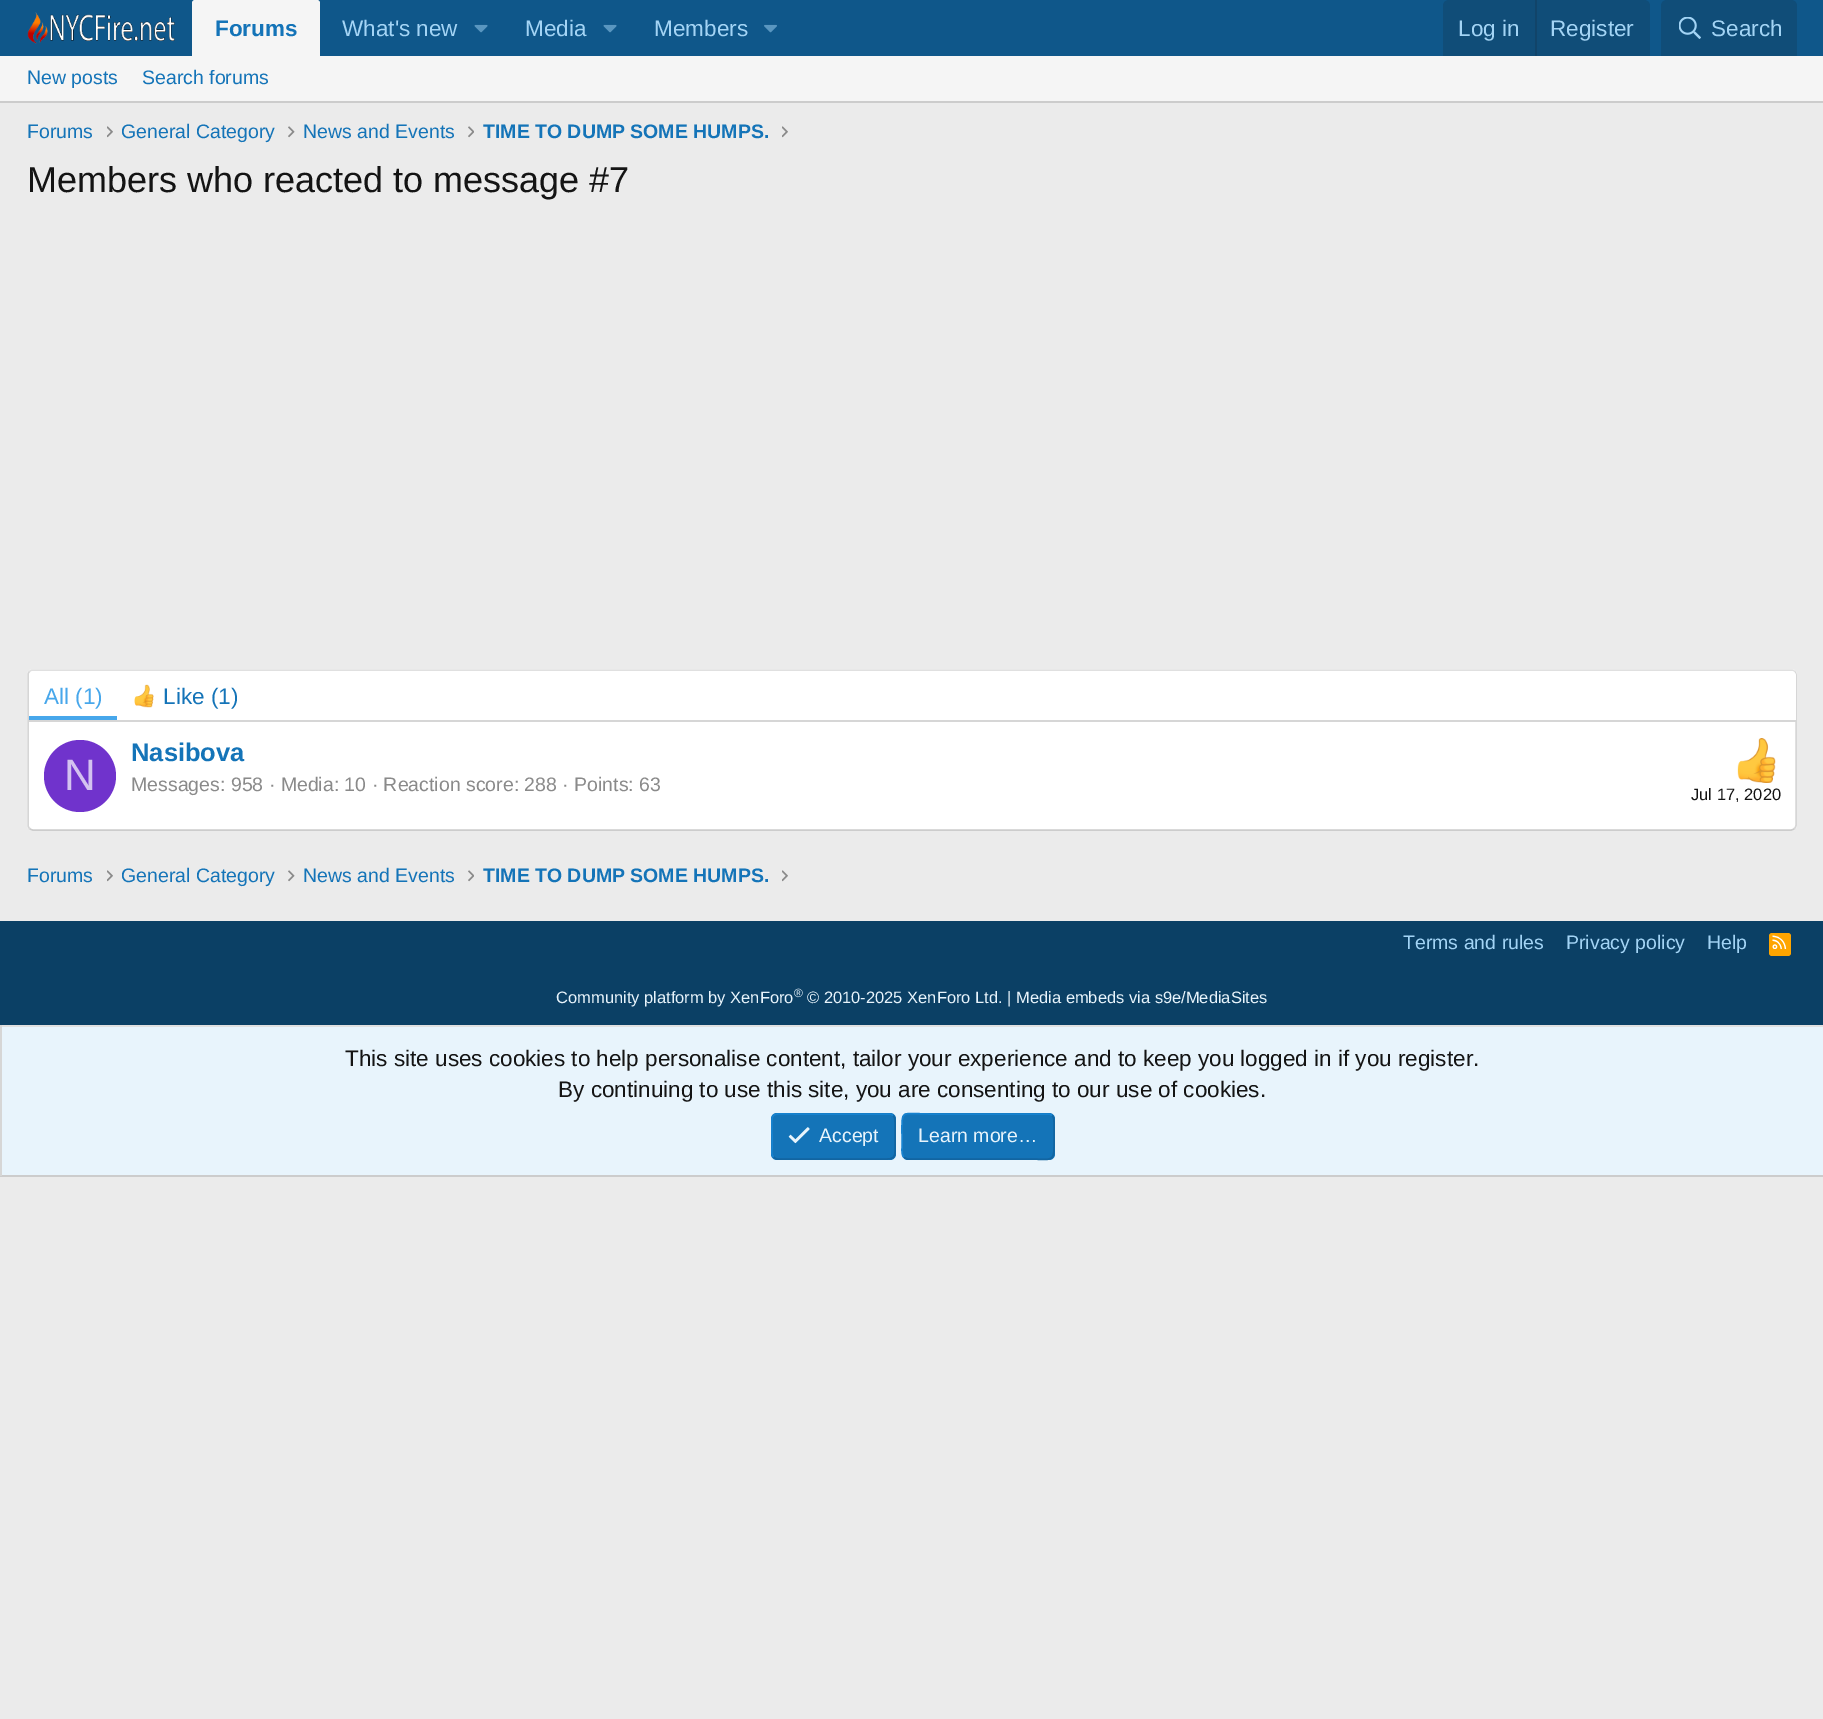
%!PS-Adobe-3.0
%%BoundingBox: 0 0 1823 1719
%%LanguageLevel: 3
%%Pages: 1
%%EndComments
%%BeginProlog
/setink { dup -16 bitshift 255 div exch dup -8 bitshift 255 and 255 div exch 255 and 255 div setrgbcolor } def
/usefont { [ exch dup neg 0 0 3 -1 roll 0 0 ] selectfont } def
/disc { newpath 0 360 arc closepath } def
/rrect { 5 dict begin { /r /h /w /y /x } { exch def } forall
  x r add y moveto x w add y 2 copy h add r arct x w add y h add x 1 index r arct
  x y h add x y r arct x y 2 copy exch w add exch r arct closepath end } def
/drawimage { 5 dict begin { /h /w /y /x /name } { exch def } forall
  gsave x y translate w h scale
  w h 8 [w 0 0 h 0 0] name (r) file false 3 colorimage grestore end } def
%%EndProlog
%%BeginSetup
<< /PageSize [1823 1719] >> setpagedevice
%%EndSetup
%%Page: 1 1
0 1719 translate 1 -1 scale
4 setmiterlimit
16#EBEBEB setink
0 0 1823 1719 rectfill
16#0F578A setink
0 0 1823 56 rectfill
(img1.raw) 27 12 148 32 drawimage
16#F5F5F5 setink
195 0 moveto 317 0 lineto 318.5 0 320 1.5 320 3 curveto 320 56 lineto 192 56 lineto 192 3 lineto 192 1.5 193.5 0 195 0 curveto closepath fill
/LiberationSans-Bold 22.5 usefont
16#1474B8 setink
215 36 moveto (Forums) show
/LiberationSans-Regular 22.5 usefont
16#A3D4F5 setink
342 36 moveto (What's new) show
(img2.raw) 474 24 14 9 drawimage
525 36 moveto (Media) show
(img2.raw) 603 24 14 9 drawimage
654 36 moveto (Members) show
(img3.raw) 764 24 13 9 drawimage
16#104D78 setink
1449 0 moveto 1644 0 lineto 1647.5 0 1650 2.5 1650 6 curveto 1650 56 lineto 1443 56 lineto 1443 6 lineto 1443 2.5 1445.5 0 1449 0 curveto closepath fill
16#A3D4F5 setink
1458 36 moveto (Log in) show
16#114469 setink
1535 0 2 56 rectfill
16#A3D4F5 setink
1550 36 moveto (Register) show
16#104D78 setink
1667 0 moveto 1791 0 lineto 1794.5 0 1797 2.5 1797 6 curveto 1797 56 lineto 1661 56 lineto 1661 6 lineto 1661 2.5 1663.5 0 1667 0 curveto closepath fill
(img4.raw) 1679 17 22 22 drawimage
16#A3D4F5 setink
1711 36 moveto (Search) show
16#F5F5F5 setink
0 56 1823 45 rectfill
16#CCCCCC setink
0 101 1823 2 rectfill
/LiberationSans-Regular 19.5 usefont
16#1474B8 setink
[
    [(New posts) 27 84]
    [(Search forums) 142 84]
    [(Forums) 27 138]
] { aload pop moveto show } forall
(img5.raw) 107 126 6 12 drawimage
121 138 moveto (General Category) show
(img6.raw) 288 126 7 12 drawimage
303 138 moveto (News and Events) show
(img7.raw) 468 126 6 12 drawimage
/LiberationSans-Bold 19.5 usefont
483 138 moveto (TIME TO DUMP SOME HUMPS.) show
(img5.raw) 782 126 6 12 drawimage
/LiberationSans-Regular 36 usefont
16#141414 setink
27 192 moveto (Members who reacted to message #7) show
16#FFFFFF setink
27 669 1770 162 6 rrect fill
16#E0E0E0 setink
1.5 setlinewidth
29.5 671.5 moveto 30.5 670.5 31.5 670 33 670 curveto 1791 670 lineto 1792.5 670 1793.5 670.5 1794.5 671.5 curveto stroke
16#D6D6D6 setink
1794.5 671.5 moveto 1795.5 672.5 1796 673.5 1796 675 curveto 1796 825 lineto 1796 826.5 1795.5 827.5 1794.5 828.5 curveto stroke
16#CCCCCC setink
1794.5 828.5 moveto 1793.5 829.5 1792.5 830 1791 830 curveto 33 830 lineto 31.5 830 30.5 829.5 29.5 828.5 curveto stroke
16#D6D6D6 setink
29.5 828.5 moveto 28.5 827.5 28 826.5 28 825 curveto 28 675 lineto 28 673.5 28.5 672.5 29.5 671.5 curveto stroke
16#FFFFFF setink
34 671 moveto 1791 671 lineto 1794 671 1796 673 1796 676 curveto 1796 722 lineto 29 722 lineto 29 676 lineto 29 673 31 671 34 671 curveto closepath fill
16#D6D6D6 setink
29 720 1767 2 rectfill
16#47A7EB setink
29 716 88 4 rectfill
/LiberationSans-Regular 22.5 usefont
44 704 moveto (All \(1\)) show
(img8.raw) 134 684 20 24 drawimage
16#1474B8 setink
163 704 moveto (Like \(1\)) show
16#7033CC setink
80 776 36 disc fill
/LiberationSans-Regular 44 usefont
16#D4C2F0 setink
64 790 moveto (N) show
/LiberationSans-Bold 25.5 usefont
16#1474B8 setink
131 761 moveto (Nasibova) show
/LiberationSans-Regular 19.5 usefont
16#8A8A8A setink
131 791 moveto (Messages: 958 · Media: 10 · Reaction score: 288 · Points: 63) show
(img9.raw) 1737 738 39 45 drawimage
/LiberationSans-Regular 16.5 usefont
16#141414 setink
1691 800 moveto (Jul 17, 2020) show
/LiberationSans-Regular 19.5 usefont
16#1474B8 setink
27 882 moveto (Forums) show
(img5.raw) 107 870 6 12 drawimage
121 882 moveto (General Category) show
(img6.raw) 288 870 7 12 drawimage
303 882 moveto (News and Events) show
(img7.raw) 468 870 6 12 drawimage
/LiberationSans-Bold 19.5 usefont
483 882 moveto (TIME TO DUMP SOME HUMPS.) show
(img5.raw) 782 870 6 12 drawimage
16#0B4065 setink
0 921 1823 104 rectfill
/LiberationSans-Regular 19.5 usefont
16#A3D4F5 setink
[
    [(Terms and rules) 1403 949]
    [(Privacy policy) 1566 949]
    [(Help) 1707 949]
] { aload pop moveto show } forall
16#FFA500 setink
1769 933 22 23 3 rrect fill
(img10.raw) 1772 935 15 14 drawimage
/LiberationSans-Regular 16.5 usefont
16#E8F4FC setink
556 1003 moveto (Community platform by XenForo) show
/LiberationSans-Regular 12 usefont
794 997 moveto (®) show
/LiberationSans-Regular 16.5 usefont
807 1003 moveto (© 2010-2025 XenForo Ltd. | Media embeds via s9e/MediaSites) show
[
    [2 1027 1821 148 16#E8F4FC]
    [0 1025 1823 2 16#E0E0E0]
    [0 1175 1823 2 16#CCCCCC]
    [0 1025 2 151 16#D6D6D6]
] { aload pop setink rectfill } forall
/LiberationSans-Regular 22.5 usefont
16#141414 setink
345 1066 moveto (This site uses cookies to help personalise content, tailor your experience and to keep you logged in if you register.) show
558 1097 moveto (By continuing to use this site, you are consenting to our use of cookies.) show
16#1474B8 setink
771 1113 125 47 6 rrect fill
16#1265A1 setink
893 1115.5 moveto 895.5 1117.5 895 1122 895 1125 curveto 895 1136 lineto 895 1162.5 898.5 1159 871 1159 curveto 777 1159 lineto 775.5 1158.5 774.5 1158 773.5 1157 curveto stroke
16#1782CF setink
773.5 1157 moveto 771 1155 772 1150.5 772 1148 curveto 772 1136 lineto 772 1110 768 1114 796 1114 curveto 889.5 1114 lineto 891 1114 892 1114.5 893 1115.5 curveto stroke
(img11.raw) 788 1127 22 17 drawimage
/LiberationSans-Regular 19.5 usefont
16#E8F4FC setink
819 1142 moveto (Accept) show
16#1474B8 setink
902 1113 153 47 6 rrect fill
16#1265A1 setink
1052 1115.5 moveto 1054.5 1117.5 1054 1122 1054 1125 curveto 1054 1136 lineto 1054 1164.5 1056.5 1159 1025 1159 curveto 907.5 1159 lineto 906 1158.5 905 1158 904 1157 curveto stroke
16#1782CF setink
904 1157 moveto 901.5 1155 902 1150.5 902 1148 curveto 902 1136 lineto 902 1108 899.5 1114 931 1114 curveto 1048.5 1114 lineto 1050 1114 1051 1114.5 1052 1115.5 curveto stroke
16#E8F4FC setink
918 1142 moveto (Learn more…) show
showpage
%%EOF
